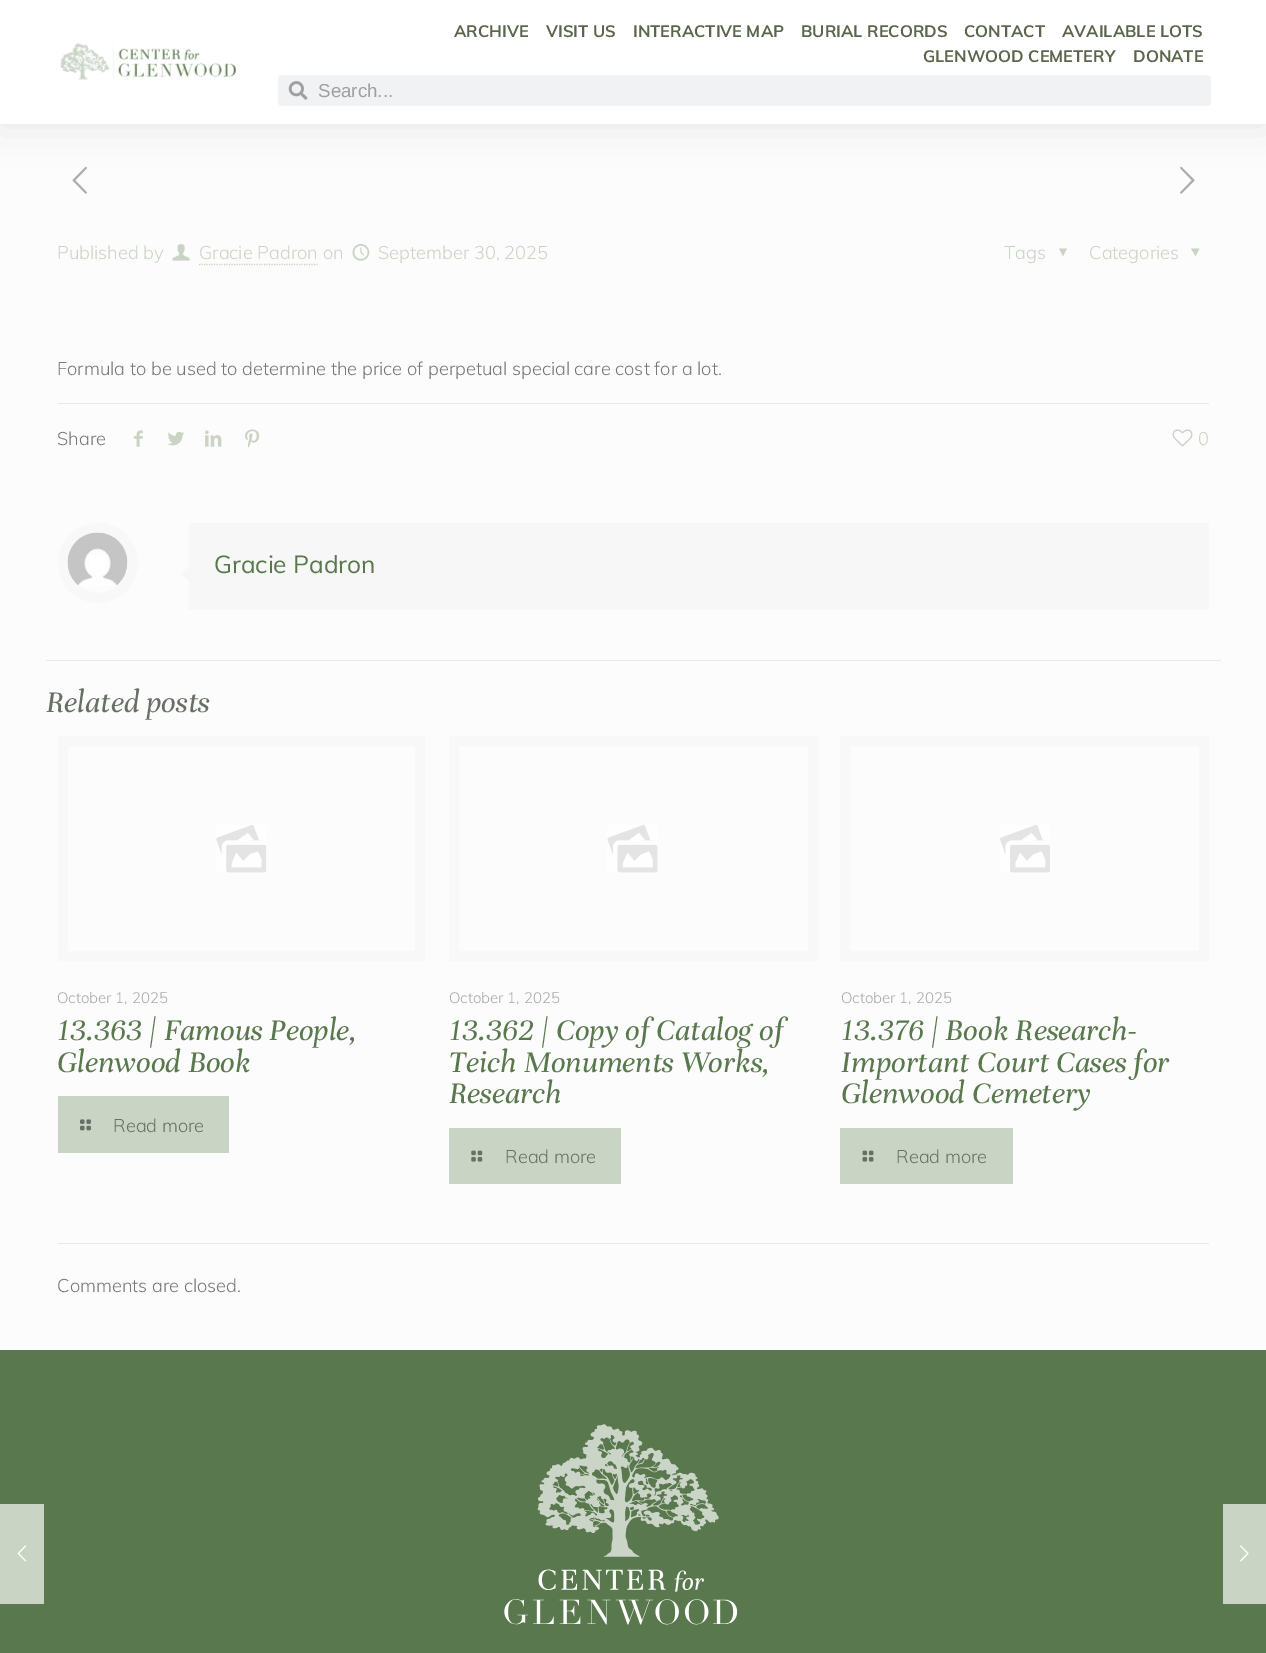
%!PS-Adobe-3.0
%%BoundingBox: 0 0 1266 1653
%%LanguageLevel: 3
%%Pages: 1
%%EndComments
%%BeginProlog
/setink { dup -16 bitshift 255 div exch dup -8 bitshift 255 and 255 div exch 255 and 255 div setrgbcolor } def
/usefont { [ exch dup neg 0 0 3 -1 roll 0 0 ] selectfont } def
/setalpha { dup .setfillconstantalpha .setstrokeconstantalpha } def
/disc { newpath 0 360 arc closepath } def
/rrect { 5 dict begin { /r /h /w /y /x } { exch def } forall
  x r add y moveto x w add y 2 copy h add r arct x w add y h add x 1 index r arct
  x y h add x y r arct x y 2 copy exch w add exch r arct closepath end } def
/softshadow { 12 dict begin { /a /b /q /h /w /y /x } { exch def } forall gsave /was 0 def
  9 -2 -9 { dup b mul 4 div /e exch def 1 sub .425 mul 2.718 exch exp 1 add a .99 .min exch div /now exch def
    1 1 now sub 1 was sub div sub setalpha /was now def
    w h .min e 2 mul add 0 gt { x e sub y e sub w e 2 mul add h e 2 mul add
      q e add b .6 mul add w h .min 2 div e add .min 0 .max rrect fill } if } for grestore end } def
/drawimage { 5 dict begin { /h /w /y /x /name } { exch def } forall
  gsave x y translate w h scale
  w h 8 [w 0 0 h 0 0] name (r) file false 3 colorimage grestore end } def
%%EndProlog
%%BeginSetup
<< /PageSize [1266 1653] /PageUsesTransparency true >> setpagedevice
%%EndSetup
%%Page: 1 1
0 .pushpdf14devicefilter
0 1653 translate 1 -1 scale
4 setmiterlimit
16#FCFCFC setink
0 0 1266 1653 rectfill
(img3.raw) 72 166 15 28 drawimage
(img4.raw) 1180 166 15 28 drawimage
16#000000 setink
0 0 1266 124 0 19 0.1 softshadow
16#FFFFFF setink
0 0 1266 124 rectfill
(img1.raw) 60 43 176 37 drawimage
/Muli-Bold 16.5 usefont
16#5A664B setink
[
    [(ARCHIVE) 454 37]
    [(VISIT US) 546 37]
    [(INTERACTIVE MAP) 633 37]
    [(BURIAL RECORDS) 801 37]
    [(CONTACT) 964 37]
    [(AVAILABLE LOTS) 1062 37]
    [(GLENWOOD CEMETERY) 923 62]
    [(DONATE) 1133 62]
] { aload pop moveto show } forall
16#F1F2F3 setink
278 75 933 31 4 rrect fill
(img2.raw) 288 81 20 19 drawimage
/LiberationSans-Regular 18.75 usefont
16#A0A0A1 setink
318 97 moveto (Search...) show
/Muli-Light 18.3 usefont
16#CAD4C5 setink
57 259 moveto (Published by) show
(img5.raw) 172 244 18 17 drawimage
199 259 moveto (Gracie Padron on) show
1.2 setlinewidth
[1.25 1.25] 0 setdash
199 264.5 moveto 317.5 264.5 lineto stroke
(img6.raw) 352 244 18 17 drawimage
378 259 moveto (September 30, 2025) show
1004 259 moveto (Tags) show
1067 248.5 moveto 1063 256 lineto 1059 248.5 lineto closepath fill
1089 259 moveto (Categories) show
1199.5 248.5 moveto 1195.5 256 lineto 1191 248.5 lineto closepath fill
16#777777 setink
57 375 moveto (Formula to be used to determine the price of perpetual special care cost for a lot.) show
16#E8E8E8 setink
58 403 1151 1 rectfill
16#777777 setink
57 445 moveto (Share) show
(img7.raw) 133 430 10 17 drawimage
(img8.raw) 168 431 16 15 drawimage
(img9.raw) 205 430 17 17 drawimage
(img10.raw) 245 429 15 19 drawimage
(img11.raw) 1172 429 21 18 drawimage
16#CAD4C5 setink
1198 445 moveto (0) show
16#F8F8F8 setink
10 setlinewidth
[] 0 setdash
98 563 35 disc stroke
(img12.raw) 67 532 61 54 drawimage
16#F7F7F7 setink
189 523 1020 87 rectfill
189 566 moveto 189 581 lineto 181 574 lineto closepath fill
/Muli-Regular 24.5 usefont
16#59784D setink
214 573 moveto (Gracie Padron) show
16#E8E8E8 setink
46 660 1175 1 rectfill
/Unna-Italic 32.5 usefont
16#687065 setink
46 712 moveto (Related posts) show
16#F8F8F8 setink
63 741 357 215 rectstroke
(img13.raw) 216 825 51 48 drawimage
/Muli-Light 15 usefont
16#A8A8A8 setink
57 1003 moveto (October 1, 2025) show
/Unna-Italic 32.5 usefont
16#59784D setink
57 1040 moveto (13.363 | Famous People,) show
57 1072 moveto (Glenwood Book) show
16#CAD4C5 setink
58 1096 171 57 rectfill
(img14.raw) 80 1119 11 12 drawimage
/Muli-Light 18.3 usefont
16#687065 setink
113 1132 moveto (Read more) show
16#F8F8F8 setink
454 741 359 215 rectstroke
(img15.raw) 607 825 51 48 drawimage
/Muli-Light 15 usefont
16#A8A8A8 setink
449 1003 moveto (October 1, 2025) show
/Unna-Italic 32.5 usefont
16#59784D setink
[
    [(13.362 | Copy of Catalog of) 449 1040]
    [(Teich Monuments Works,) 449 1072]
    [(Research) 449 1103]
] { aload pop moveto show } forall
16#CAD4C5 setink
449 1128 172 56 rectfill
(img16.raw) 471 1150 12 12 drawimage
/Muli-Light 18.3 usefont
16#687065 setink
505 1163 moveto (Read more) show
16#F8F8F8 setink
845 741 359 215 rectstroke
(img17.raw) 1000 825 50 48 drawimage
/Muli-Light 15 usefont
16#A8A8A8 setink
841 1003 moveto (October 1, 2025) show
/Unna-Italic 32.5 usefont
16#59784D setink
[
    [(13.376 | Book Research-) 841 1040]
    [(Important Court Cases for) 841 1072]
    [(Glenwood Cemetery) 841 1103]
] { aload pop moveto show } forall
16#CAD4C5 setink
840 1128 173 56 rectfill
(img18.raw) 862 1150 12 12 drawimage
/Muli-Light 18.3 usefont
16#687065 setink
896 1163 moveto (Read more) show
16#E8E8E8 setink
58 1243 1151 1 rectfill
16#777777 setink
57 1292 moveto (Comments are closed.) show
16#59784D setink
0 1350 1266 303 rectfill
(img19.raw) 504 1424 234 201 drawimage
16#CAD4C5 setink
0 1504 44 100 rectfill
(img20.raw) 17 1545 10 17 drawimage
1223 1504 43 100 rectfill
(img21.raw) 1240 1545 9 17 drawimage
.poppdf14devicefilter showpage
%%EOF
